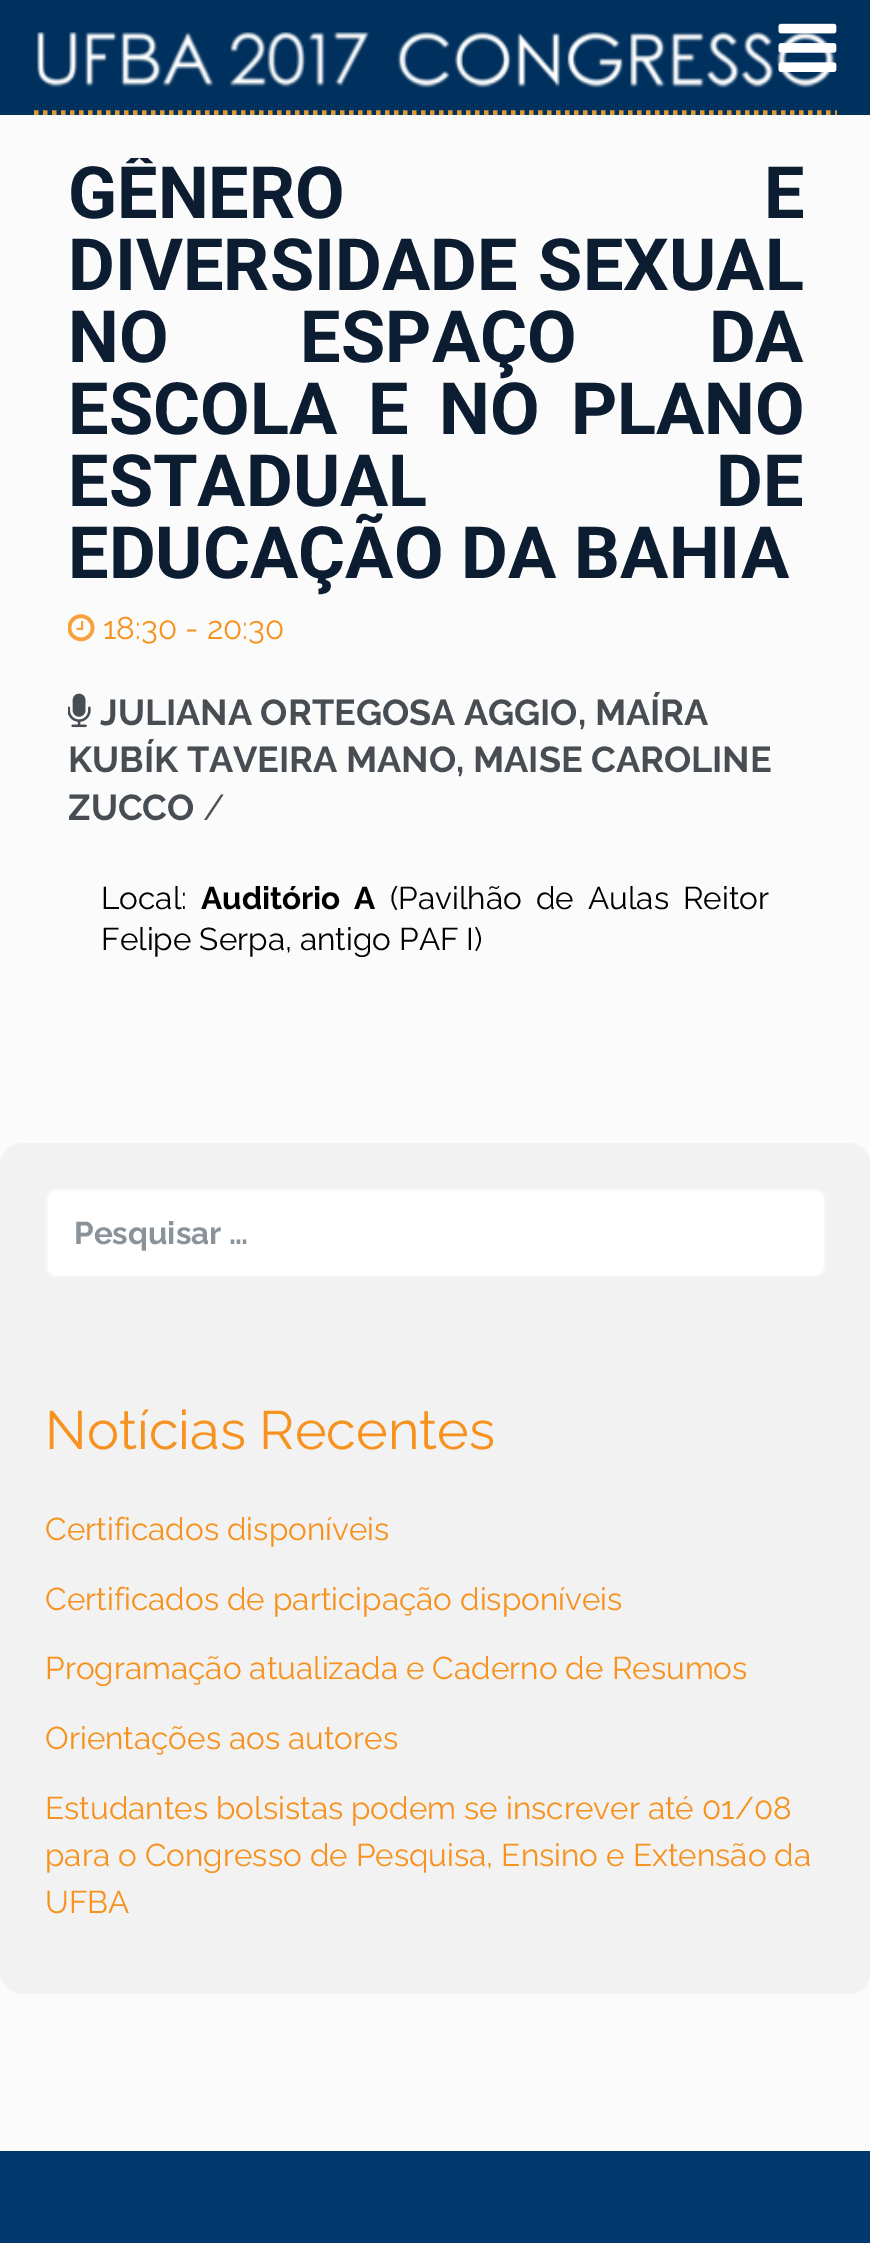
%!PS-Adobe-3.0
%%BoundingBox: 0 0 870 2243
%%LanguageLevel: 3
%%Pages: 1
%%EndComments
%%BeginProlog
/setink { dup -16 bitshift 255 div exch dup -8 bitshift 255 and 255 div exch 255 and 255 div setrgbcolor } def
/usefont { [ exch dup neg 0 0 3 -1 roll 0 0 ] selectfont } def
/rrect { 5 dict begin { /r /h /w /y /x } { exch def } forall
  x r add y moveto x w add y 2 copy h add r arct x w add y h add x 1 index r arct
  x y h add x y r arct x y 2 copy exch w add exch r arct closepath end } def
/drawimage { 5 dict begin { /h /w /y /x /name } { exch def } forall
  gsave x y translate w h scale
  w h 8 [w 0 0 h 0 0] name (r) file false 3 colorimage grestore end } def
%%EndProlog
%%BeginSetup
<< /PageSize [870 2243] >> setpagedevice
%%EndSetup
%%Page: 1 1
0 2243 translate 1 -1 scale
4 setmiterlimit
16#FBFBFB setink
0 0 870 2243 rectfill
16#00305D setink
0 0 870 115 rectfill
16#DD9933 setink
4.5 setlinewidth
[4.5 4.5] 0 setdash
34 112.5 moveto 837 112.5 lineto stroke
(img2.raw) 37 32 798 56 drawimage
(img1.raw) 778 23 59 49 drawimage
gsave
68 158 735 675 rectclip
/Roboto-Bold 72 usefont
16#0D1D31 setink
68 218 moveto 401 0 32 (GÊNERO E) widthshow
grestore
/Roboto-Bold 72 usefont
16#0D1D31 setink
68 290 moveto 3 0 32 (DIVERSIDADE SEXUAL) widthshow
68 362 moveto 114 0 32 (NO ESPAÇO DA) widthshow
68 434 moveto 13 0 32 (ESCOLA E NO PLANO) widthshow
68 506 moveto 271 0 32 (ESTADUAL DE) widthshow
68 578 moveto (EDUCAÇÃO DA BAHIA) show
(img3.raw) 68 614 27 28 drawimage
/Raleway-Regular 31.5 usefont
16#F7921E setink
103 639 moveto (18:30 - 20:30) show
(img4.raw) 68 693 23 35 drawimage
/Raleway-Bold 36 usefont
16#474D52 setink
[
    [(JULIANA ORTEGOSA AGGIO, MAÍRA) 100 725]
    [(KUBÍK TAVEIRA MANO, MAISE CAROLINE) 68 772]
    [(ZUCCO) 68 820]
] { aload pop moveto show } forall
/Raleway-Regular 36 usefont
203 820 moveto (/) show
/Raleway-Regular 31.5 usefont
16#000000 setink
101 909 moveto (Local:) show
/Raleway-Bold 31.5 usefont
201 909 moveto 6 0 32 (Auditório A) widthshow
/Raleway-Regular 31.5 usefont
390 909 moveto 6 0 32 (\(Pavilhão de Aulas Reitor) widthshow
101 950 moveto (Felipe Serpa, antigo PAF I\)) show
16#F2F2F2 setink
0 1143 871 851 23 rrect fill
16#FFFFFF setink
46 1189 779 88 10 rrect gsave fill grestore
16#F5F5F5 setink
2 setlinewidth
[] 0 setdash
stroke
/Raleway-Bold 31.5 usefont
16#8A929A setink
74 1244 moveto (Pesquisar …) show
/Raleway-Regular 54 usefont
16#F7921E setink
45 1449 moveto (Notícias Recentes) show
/Raleway-Regular 31.5 usefont
[
    [(Certificados disponíveis) 45 1540]
    [(Certificados de participação disponíveis) 45 1610]
    [(Programação atualizada e Caderno de Resumos) 45 1679]
    [(Orientações aos autores) 45 1749]
    [(Estudantes bolsistas podem se inscrever até 01/08) 45 1819]
    [(para o Congresso de Pesquisa, Ensino e Extensão da) 45 1866]
    [(UFBA) 45 1913]
] { aload pop moveto show } forall
16#00386D setink
0 2151 870 92 rectfill
showpage
%%EOF
